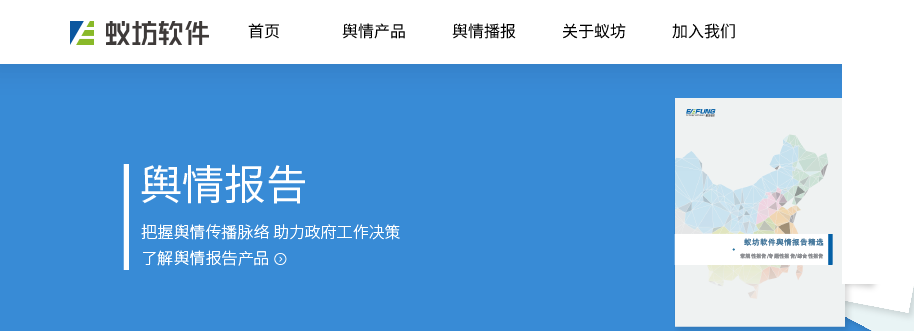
%!PS-Adobe-3.0
%%BoundingBox: 0 0 914 331
%%LanguageLevel: 3
%%Pages: 1
%%EndComments
%%BeginProlog
/setink { dup -16 bitshift 255 div exch dup -8 bitshift 255 and 255 div exch 255 and 255 div setrgbcolor } def
/usefont { [ exch dup neg 0 0 3 -1 roll 0 0 ] selectfont } def
/setalpha { dup .setfillconstantalpha .setstrokeconstantalpha } def
/rrect { 5 dict begin { /r /h /w /y /x } { exch def } forall
  x r add y moveto x w add y 2 copy h add r arct x w add y h add x 1 index r arct
  x y h add x y r arct x y 2 copy exch w add exch r arct closepath end } def
/softshadow { 12 dict begin { /a /b /q /h /w /y /x } { exch def } forall gsave /was 0 def
  9 -2 -9 { dup b mul 4 div /e exch def 1 sub .425 mul 2.718 exch exp 1 add a .99 .min exch div /now exch def
    1 1 now sub 1 was sub div sub setalpha /was now def
    w h .min e 2 mul add 0 gt { x e sub y e sub w e 2 mul add h e 2 mul add
      q e add b .6 mul add w h .min 2 div e add .min 0 .max rrect fill } if } for grestore end } def
/drawimage { 5 dict begin { /h /w /y /x /name } { exch def } forall
  gsave x y translate w h scale
  w h 8 [w 0 0 h 0 0] name (r) file false 3 colorimage grestore end } def
%%EndProlog
%%BeginSetup
<< /PageSize [914 331] /PageUsesTransparency true >> setpagedevice
%%EndSetup
%%Page: 1 1
0 .pushpdf14devicefilter
0 331 translate 1 -1 scale
4 setmiterlimit
16#388BD6 setink
0 0 914 331 rectfill
(img3.raw) 674 98 240 233 drawimage
16#000000 setink
-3 0 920 70 0 11 0.08 softshadow
16#FFFFFF setink
0 0 914 64 rectfill
(img1.raw) 70 21 139 24 drawimage
/NotoSansCJKSC-Regular 16 usefont
16#000000 setink
[
    [(首页) 248 37]
    [(舆情产品) 342 37]
    [(舆情播报) 452 37]
    [(关于蚁坊) 562 37]
    [(加入我们) 672 37]
] { aload pop moveto show } forall
(img2.raw) 123 164 277 106 drawimage
16#FFFFFF setink
842 64 72 220 rectfill
.poppdf14devicefilter showpage
%%EOF
